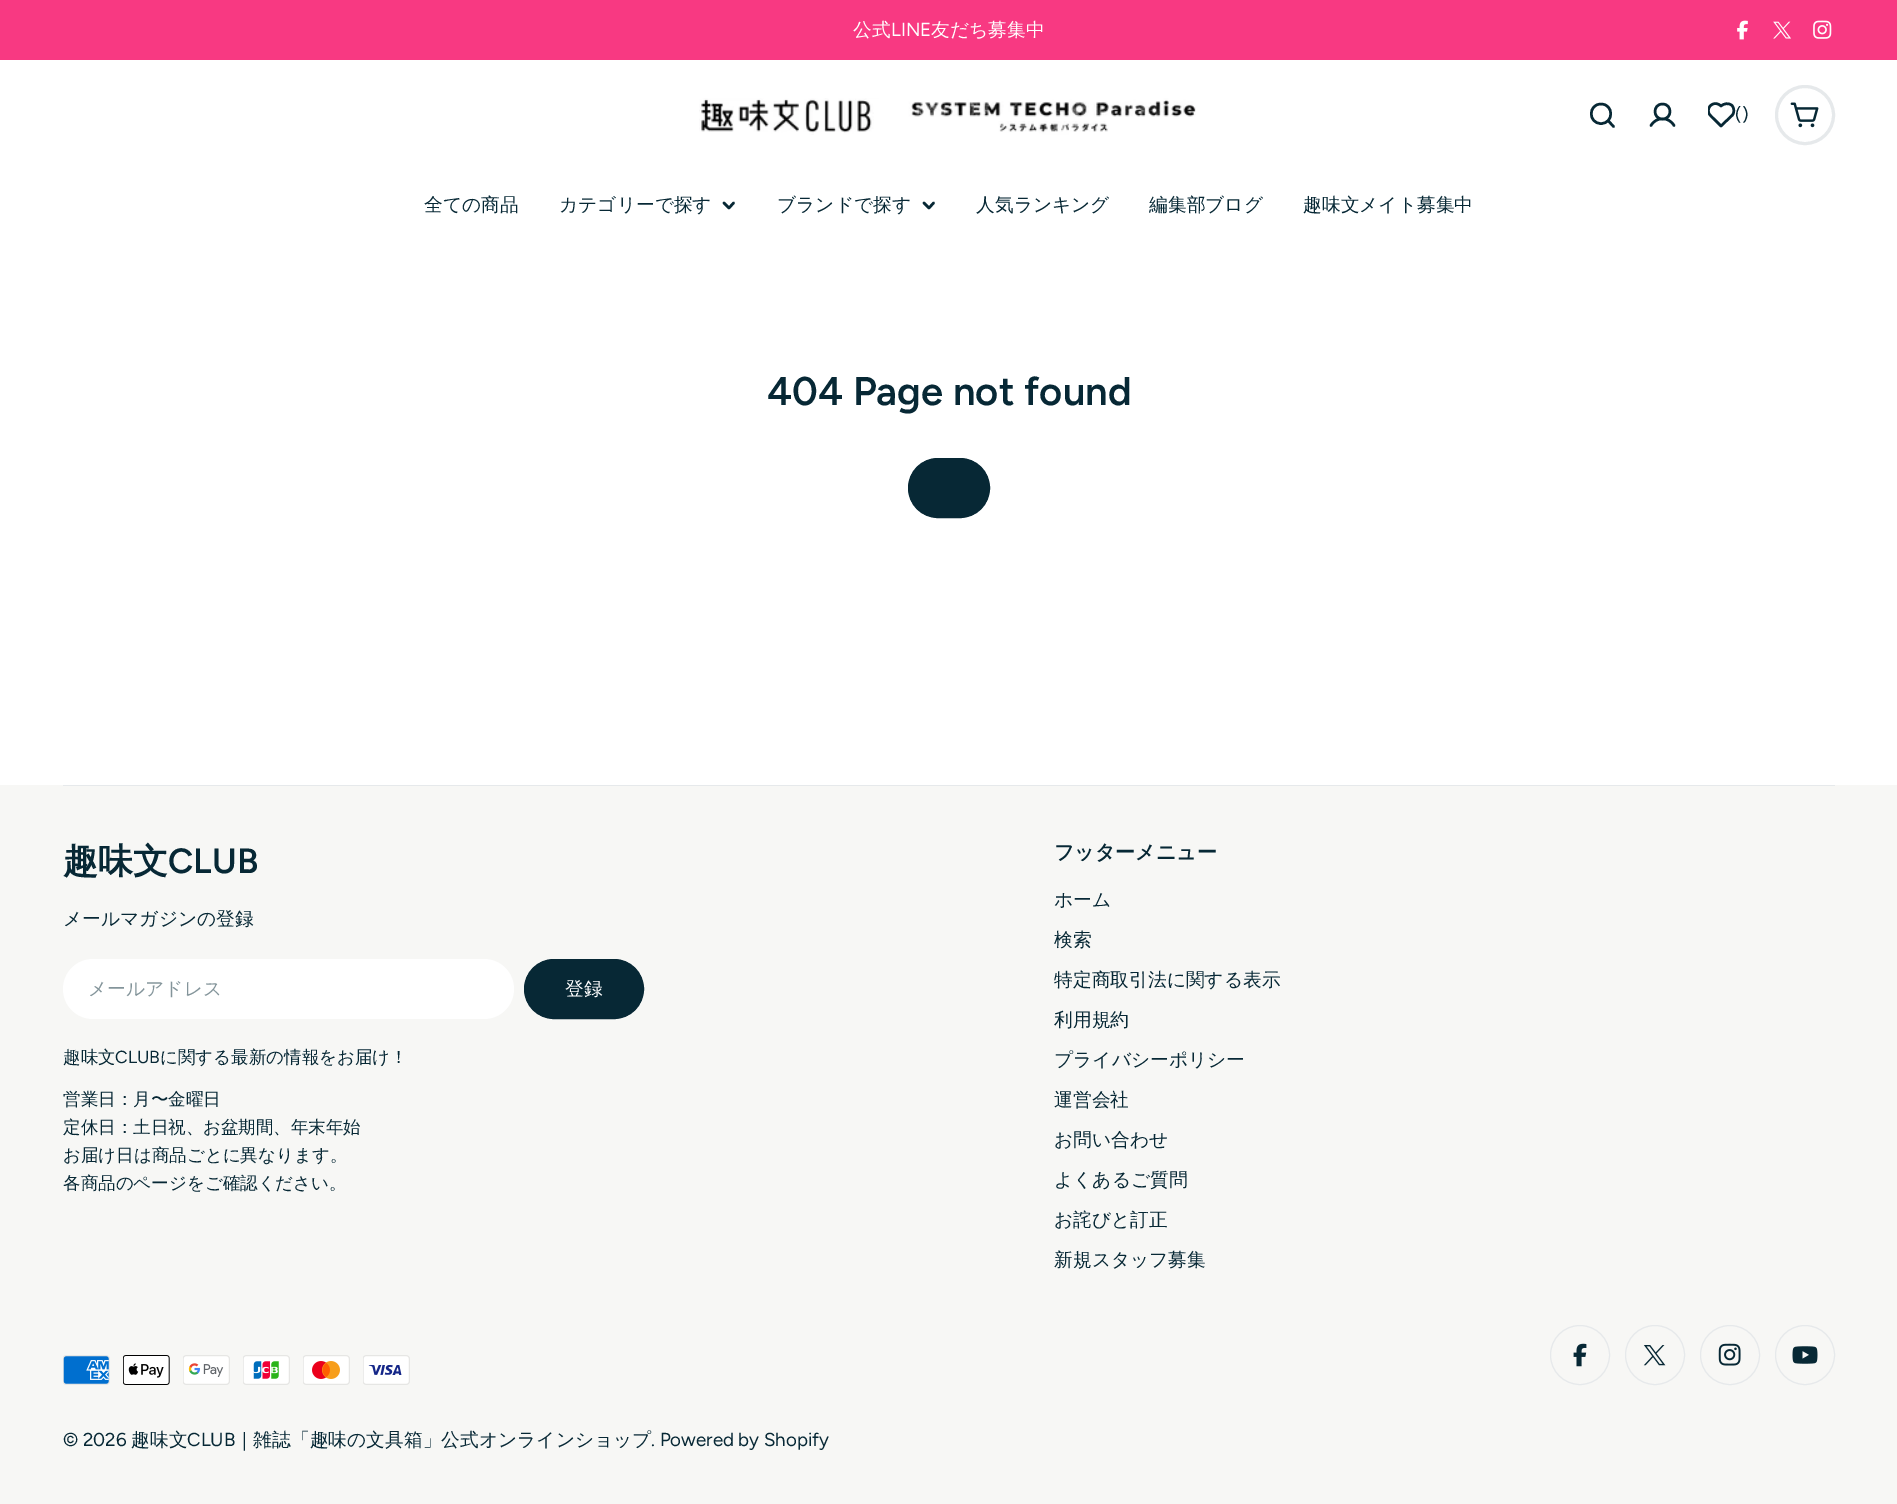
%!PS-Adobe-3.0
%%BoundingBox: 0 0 1897 1504
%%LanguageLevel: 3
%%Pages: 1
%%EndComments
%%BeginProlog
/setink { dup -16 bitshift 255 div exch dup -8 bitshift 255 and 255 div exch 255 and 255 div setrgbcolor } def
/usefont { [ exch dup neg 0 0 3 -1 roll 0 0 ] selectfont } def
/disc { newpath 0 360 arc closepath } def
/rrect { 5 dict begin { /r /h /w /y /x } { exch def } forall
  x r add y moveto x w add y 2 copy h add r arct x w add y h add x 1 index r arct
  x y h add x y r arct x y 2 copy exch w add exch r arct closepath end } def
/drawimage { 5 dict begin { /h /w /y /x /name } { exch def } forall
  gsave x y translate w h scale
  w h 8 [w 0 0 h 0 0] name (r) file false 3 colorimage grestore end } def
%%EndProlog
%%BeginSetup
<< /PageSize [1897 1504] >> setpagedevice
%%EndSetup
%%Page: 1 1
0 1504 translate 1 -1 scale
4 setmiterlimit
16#FFFFFF setink
0 0 1897 1504 rectfill
16#F83982 setink
0 0 1897 60 rectfill
/WenQuanYiZenHei-Medium 18.75 usefont
16#FFFFFF setink
853 36 moveto (公式) show
/Figtree-Regular 18.75 usefont
891 36 moveto (LINE) show
/WenQuanYiZenHei-Medium 18.75 usefont
931 36 moveto (友だち募集中) show
(img1.raw) 1737 20 11 20 drawimage
(img2.raw) 1773 21 18 18 drawimage
(img3.raw) 1813 20 19 19 drawimage
(img4.raw) 699 98 497 37 drawimage
16#072835 setink
2.5 setlinewidth
1 setlinecap
1 setlinejoin
1601 123.5 moveto 1614 123.5 1614 104 1601 104 curveto 1588 104 1588 123.5 1601 123.5 curveto closepath 1608 120.5 moveto 1613.5 126.5 lineto stroke
1662.5 119 moveto 1672.5 119 1672.5 104 1662.5 104 curveto 1652.5 104 1652.5 119 1662.5 119 curveto closepath 1651 125.5 moveto 1656 116.5 1669 116.5 1674 125.5 curveto stroke
gsave
1708 100 30 30 rectclip
1732 105.5 moveto 1728.5 102.5 1724 103.5 1721 106 curveto 1715 100 1706 106 1709 113.5 curveto 1710 115.5 1712.5 117.5 1714 119 curveto 1721 126 lineto 1732 115.5 lineto 1734.5 113 1734.5 108.5 1732 105.5 curveto closepath stroke
grestore
/Figtree-Regular 18.75 usefont
1735 121 moveto (\(\)) show
16#E6E9EB setink
3 setlinewidth
0 setlinecap
0 setlinejoin
1805 115 28.5 disc stroke
(img5.raw) 1790 102 29 26 drawimage
/WenQuanYiZenHei-Medium 18.75 usefont
16#072835 setink
424 211 moveto (全ての商品) show
559 211 moveto (カテゴリーで探す) show
2.5 setlinewidth
1 setlinecap
1 setlinejoin
733.5 203 moveto 729 208 lineto 724 203 lineto stroke
777 211 moveto (ブランドで探す) show
933.5 203 moveto 929 208 lineto 924 203 lineto stroke
[
    [(人気ランキング) 976 211]
    [(編集部ブログ) 1149 211]
    [(趣味文メイト募集中) 1303 211]
] { aload pop moveto show } forall
/Figtree-SemiBold 40 usefont
767 405 moveto (404 Page not found) show
908.5 458.5 81 59 29.5 rrect gsave fill grestore
1 setlinewidth
0 setlinecap
0 setlinejoin
stroke
16#F7F7F5 setink
0 785 1897 719 rectfill
16#E6E9EB setink
63 785 1772 1 rectfill
/WenQuanYiZenHei-Bold 35 usefont
16#072835 setink
63 873 moveto (趣味文) show
/Figtree-SemiBold 35 usefont
168 873 moveto (CLUB) show
/WenQuanYiZenHei-Medium 18.75 usefont
63 925 moveto (メールマガジンの登録) show
16#FFFFFF setink
63 959 451 60 30 rrect fill
16#83949A setink
88 995 moveto (メールアドレス) show
16#072835 setink
524.5 959.5 119 59 29.5 rrect gsave fill grestore
stroke
16#FFFFFF setink
565 995 moveto (登録) show
/WenQuanYiZenHei-Medium 17.5 usefont
16#072835 setink
63 1063 moveto (趣味文) show
/Figtree-Regular 17.5 usefont
115 1063 moveto (CLUB) show
/WenQuanYiZenHei-Medium 17.5 usefont
[
    [(に関する最新の情報をお届け！) 160 1063]
    [(営業日：月〜金曜日) 63 1105]
    [(定休日：土日祝、お盆期間、年末年始) 63 1133]
    [(お届け日は商品ごとに異なります。) 63 1161]
    [(各商品のページをご確認ください。) 63 1189]
] { aload pop moveto show } forall
/WenQuanYiZenHei-Bold 20 usefont
1054 859 moveto (フッターメニュー) show
/WenQuanYiZenHei-Medium 18.75 usefont
[
    [(ホーム) 1054 906]
    [(検索) 1054 946]
    [(特定商取引法に関する表示) 1054 986]
    [(利用規約) 1054 1026]
    [(プライバシーポリシー) 1054 1066]
    [(運営会社) 1054 1106]
    [(お問い合わせ) 1054 1146]
    [(よくあるご質問) 1054 1186]
    [(お詫びと訂正) 1054 1226]
    [(新規スタッフ募集) 1054 1266]
] { aload pop moveto show } forall
(img6.raw) 63 1355 47 30 drawimage
(img7.raw) 123 1355 47 30 drawimage
(img8.raw) 183 1355 47 30 drawimage
(img9.raw) 243 1355 47 30 drawimage
(img10.raw) 303 1355 47 30 drawimage
(img11.raw) 363 1355 47 30 drawimage
16#E6E9EB setink
1580 1355 29.5 disc stroke
(img12.raw) 1573 1343 14 24 drawimage
1655 1355 29.5 disc stroke
(img13.raw) 1643 1345 23 21 drawimage
1730 1355 29.5 disc stroke
(img14.raw) 1718 1343 23 23 drawimage
1805 1355 29.5 disc stroke
(img15.raw) 1792 1346 26 18 drawimage
/Figtree-Regular 18.75 usefont
16#072835 setink
63 1446 moveto (© 2026) show
/WenQuanYiZenHei-Medium 18.75 usefont
131 1446 moveto (趣味文) show
/Figtree-Regular 18.75 usefont
187 1446 moveto (CLUB) show
/WenQuanYiZenHei-Medium 18.75 usefont
235 1446 moveto (｜雑誌「趣味の文具箱」公式オンラインショップ) show
/Figtree-Regular 18.75 usefont
651 1446 moveto (. Powered by Shopify) show
showpage
%%EOF
